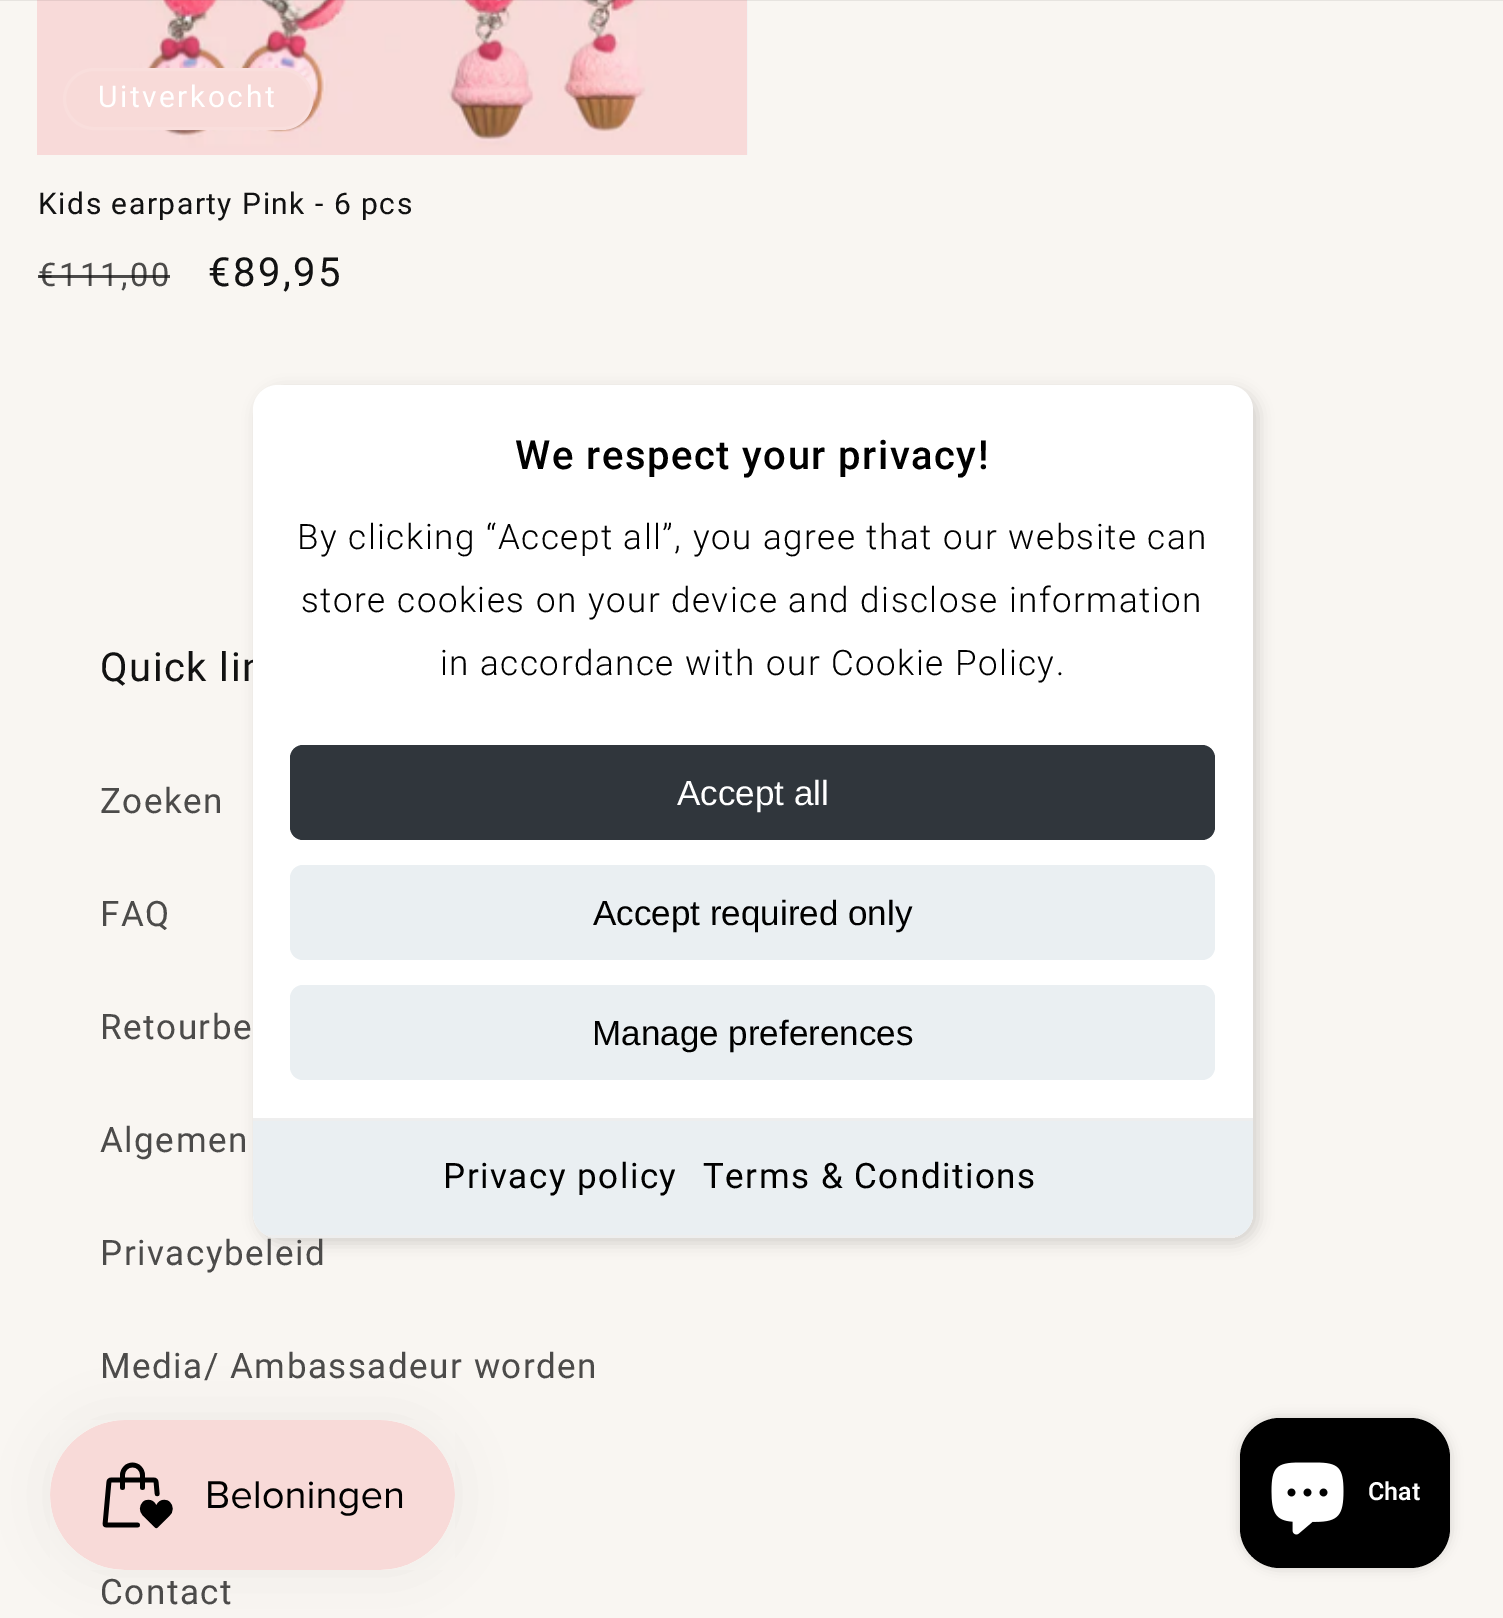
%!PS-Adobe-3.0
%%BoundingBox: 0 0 1503 1618
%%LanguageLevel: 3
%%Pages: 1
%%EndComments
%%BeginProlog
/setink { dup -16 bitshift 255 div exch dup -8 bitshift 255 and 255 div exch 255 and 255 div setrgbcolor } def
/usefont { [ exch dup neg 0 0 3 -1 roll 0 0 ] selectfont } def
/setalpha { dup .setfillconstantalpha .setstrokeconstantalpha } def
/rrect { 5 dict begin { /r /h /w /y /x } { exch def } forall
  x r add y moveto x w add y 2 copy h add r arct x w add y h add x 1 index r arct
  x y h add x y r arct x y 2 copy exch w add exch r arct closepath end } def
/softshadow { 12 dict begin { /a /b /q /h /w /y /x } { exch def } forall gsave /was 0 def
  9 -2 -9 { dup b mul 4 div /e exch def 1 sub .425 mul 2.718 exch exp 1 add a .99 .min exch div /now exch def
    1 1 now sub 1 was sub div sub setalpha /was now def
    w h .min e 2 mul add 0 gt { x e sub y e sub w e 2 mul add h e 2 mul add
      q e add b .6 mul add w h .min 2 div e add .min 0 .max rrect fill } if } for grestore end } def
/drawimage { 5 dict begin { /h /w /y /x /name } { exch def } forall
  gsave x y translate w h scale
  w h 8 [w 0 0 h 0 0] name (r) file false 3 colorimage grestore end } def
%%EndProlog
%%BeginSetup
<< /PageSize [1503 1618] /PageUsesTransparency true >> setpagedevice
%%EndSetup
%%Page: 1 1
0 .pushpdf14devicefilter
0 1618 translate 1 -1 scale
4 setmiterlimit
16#F9F6F2 setink
0 0 1503 1618 rectfill
16#F3F3F3 setink
747 0 1 155 rectfill
(img1.raw) 37 0 710 155 drawimage
0.08 setalpha
16#121212 setink
0 0 1503 1 rectfill
1 setalpha
16#F8DAD8 setink
63 68 250 62 31 rrect fill
0.1 setalpha
16#FFFFFF setink
3 setlinewidth
64.5 69.5 247 59 29.5 rrect stroke
/Roboto-Regular 30 usefont
1 setalpha
98 107 moveto 2.5 0 (Uitverkocht) ashow
16#121212 setink
38 214 moveto 1.5 0 (Kids earparty Pink - 6 pcs) ashow
/Roboto-Regular 32.5 usefont
16#4C4B4A setink
38 286 moveto 2.5 0 (€111,00) ashow
0.75 setalpha
16#121212 setink
38 275 132 3 rectfill
/Roboto-Regular 40 usefont
1 setalpha
208 286 moveto 2.5 0 (€89,95) ashow
16#000000 setink
258 390 1000 853 25 7.5 0.15 softshadow
16#121212 setink
100 681 moveto 1.5 0 (Quick lin) ashow
16#FFFFFF setink
253 385 1000 853 25 rrect fill
/Roboto-Medium 40 usefont
16#000000 setink
515 469 moveto 1.5 0 (We respect your privacy!) ashow
/Roboto-Light 35 usefont
297 549 moveto 1.5 0 (By clicking “Accept all”, you agree that our website can) ashow
301 612 moveto 1.5 0 (store cookies on your device and disclose information) ashow
440 675 moveto 1.5 0 (in accordance with our Cookie Policy.) ashow
16#30363C setink
290 745 925 95 13 rrect fill
/LiberationSans-Regular 35 usefont
16#FFFFFF setink
677 805 moveto (Accept all) show
16#EAEFF2 setink
290 865 925 95 13 rrect fill
16#000000 setink
593 925 moveto (Accept required only) show
16#EAEFF2 setink
290 985 925 95 13 rrect fill
16#000000 setink
592 1045 moveto (Manage preferences) show
16#EAEFF2 setink
253 1118 moveto 1253 1118 lineto 1253 1213 lineto 1253 1227 1242 1238 1228 1238 curveto 278 1238 lineto 264 1238 253 1227 253 1213 curveto closepath fill
16#EEEEEE setink
253 1118 1000 3 rectfill
gsave
253 385 1000 853 25 rrect clip newpath
266 1235 974 3 rectfill
grestore
/Roboto-Regular 35 usefont
16#000000 setink
443 1188 moveto 1.5 0 (Privacy policy) ashow
703 1188 moveto 1.5 0 (Terms & Conditions) ashow
16#4C4B4A setink
100 813 moveto 1.5 0 (Zoeken) ashow
100 926 moveto 1.5 0 (FAQ) ashow
100 1039 moveto 1.5 0 (Retourbe) ashow
100 1152 moveto 1.5 0 (Algemen) ashow
100 1265 moveto 1.5 0 (Privacybeleid) ashow
100 1378 moveto 1.5 0 (Media/ Ambassadeur worden) ashow
100 1604 moveto 1.5 0 (Contact) ashow
16#000000 setink
50 1420 405 150 75 31 0.05 softshadow
(img2.raw) 50 1420 405 150 drawimage
1240 1418 210 150 40 6 0.15 softshadow
1240 1418 210 150 40 rrect fill
(img3.raw) 1271 1462 73 73 drawimage
/Roboto-SemiBold 25 usefont
16#FFFFFF setink
1368 1500 moveto (Chat) show
.poppdf14devicefilter showpage
%%EOF
